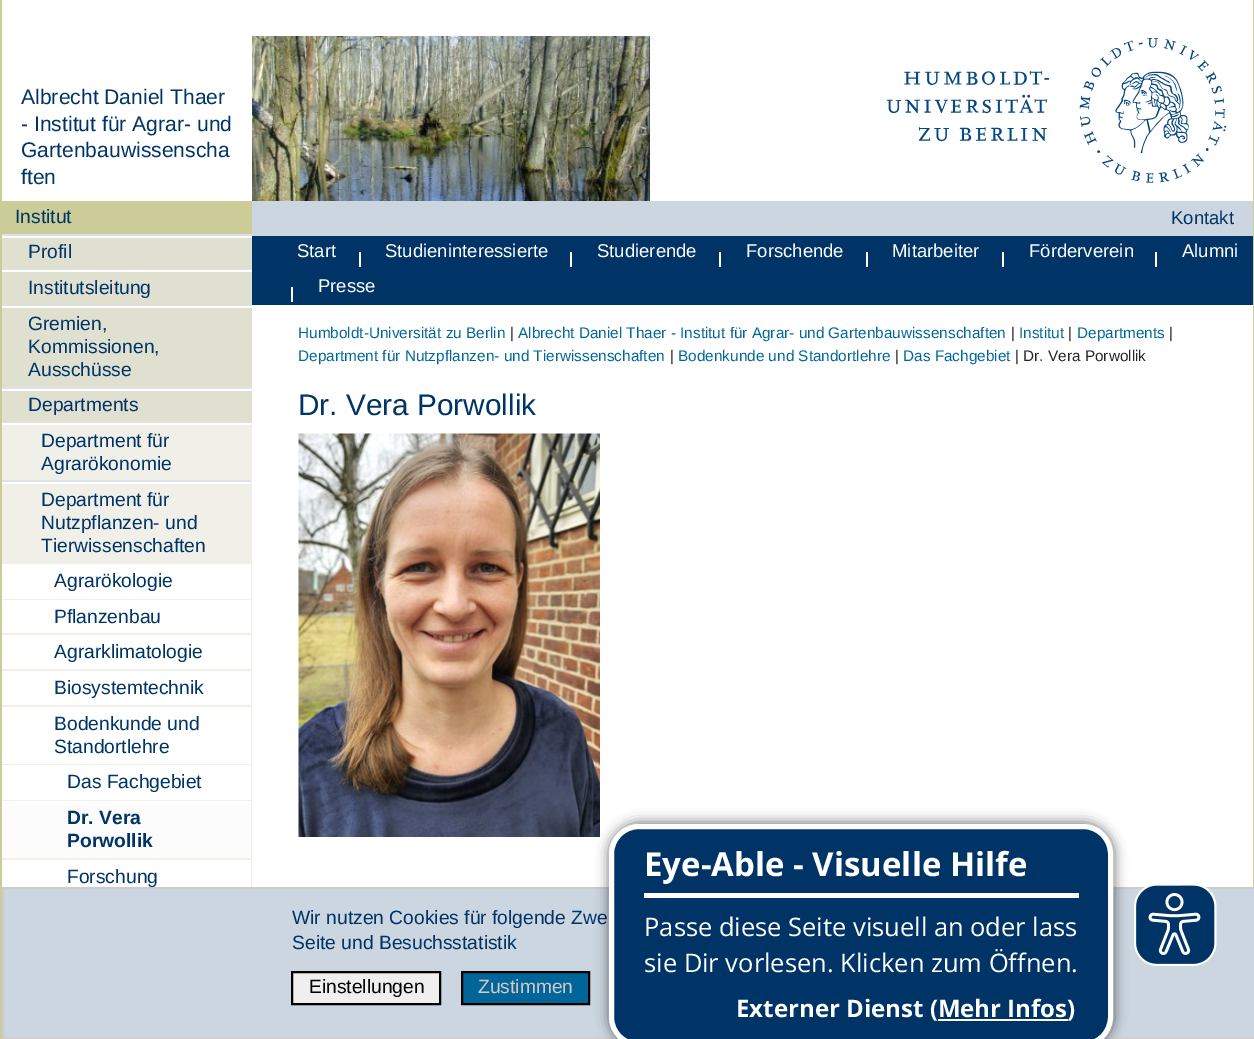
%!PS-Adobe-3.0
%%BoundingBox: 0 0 1254 1039
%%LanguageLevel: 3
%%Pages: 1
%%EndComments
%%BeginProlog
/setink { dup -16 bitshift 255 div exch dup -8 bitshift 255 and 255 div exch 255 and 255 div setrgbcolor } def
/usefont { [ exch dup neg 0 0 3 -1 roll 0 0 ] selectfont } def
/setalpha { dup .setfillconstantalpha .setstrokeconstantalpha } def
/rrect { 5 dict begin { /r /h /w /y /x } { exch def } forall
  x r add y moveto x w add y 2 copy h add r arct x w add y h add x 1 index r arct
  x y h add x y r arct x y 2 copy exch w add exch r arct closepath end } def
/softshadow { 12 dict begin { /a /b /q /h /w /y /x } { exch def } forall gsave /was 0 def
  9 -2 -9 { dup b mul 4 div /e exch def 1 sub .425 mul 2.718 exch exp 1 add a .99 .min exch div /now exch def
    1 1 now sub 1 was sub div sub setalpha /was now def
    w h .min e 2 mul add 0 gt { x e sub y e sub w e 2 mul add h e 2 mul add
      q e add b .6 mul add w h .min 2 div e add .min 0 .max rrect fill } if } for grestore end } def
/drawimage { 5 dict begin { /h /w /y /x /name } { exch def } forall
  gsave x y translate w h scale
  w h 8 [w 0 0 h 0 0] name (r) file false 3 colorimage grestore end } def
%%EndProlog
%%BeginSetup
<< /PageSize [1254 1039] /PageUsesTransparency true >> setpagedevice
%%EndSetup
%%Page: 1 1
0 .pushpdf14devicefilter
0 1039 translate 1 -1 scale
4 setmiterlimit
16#FFFFFF setink
0 0 1254 1039 rectfill
16#003366 setink
649 36 1 165 rectfill
(img1.raw) 252 36 398 165 drawimage
(img2.raw) 887 38 340 145 drawimage
16#CCCC99 setink
1253 0 1 887 rectfill
0 0 2 1039 rectfill
/LiberationSans-Regular 21.1 usefont
16#003366 setink
[
    [(Albrecht Daniel Thaer) 21 104]
    [(- Institut für Agrar- und) 21 131]
    [(Gartenbauwissenscha) 21 157]
    [(ften) 21 184]
] { aload pop moveto show } forall
16#CCCC99 setink
2 201 250 33 rectfill
/LiberationSans-Regular 19.25 usefont
16#003366 setink
15 223 moveto (Institut) show
16#E0E0D1 setink
2 238 250 31 rectfill
16#DEE2E6 setink
2 234 250 2 rectfill
16#003366 setink
28 258 moveto (Profil) show
16#E0E0D1 setink
2 272 250 33 rectfill
16#DEE2E6 setink
2 269 250 1 rectfill
16#003366 setink
28 294 moveto (Institutsleitung) show
16#E0E0D1 setink
2 308 250 79 rectfill
16#DEE2E6 setink
2 305 250 1 rectfill
16#003366 setink
[
    [(Gremien,) 28 330]
    [(Kommissionen,) 28 353]
    [(Ausschüsse) 28 376]
] { aload pop moveto show } forall
16#E0E0D1 setink
2 391 250 31 rectfill
16#DEE2E6 setink
2 387 250 2 rectfill
16#003366 setink
28 411 moveto (Departments) show
[
    [2 425 249 55 16#F0F0E8]
    [2 422 250 1 16#DEE2E6]
    [251 422 1 58 16#F0F0E8]
] { aload pop setink rectfill } forall
16#003366 setink
41 447 moveto (Department für) show
41 470 moveto (Agrarökonomie) show
[
    [2 484 249 80 16#F0F0E8]
    [2 480 250 2 16#DEE2E6]
    [251 480 1 407 16#F0F0E8]
] { aload pop setink rectfill } forall
16#003366 setink
[
    [(Department für) 41 506]
    [(Nutzpflanzen- und) 41 529]
    [(Tierwissenschaften) 41 552]
    [(Agrarökologie) 54 587]
] { aload pop moveto show } forall
16#F0F0E8 setink
2 599 249 1 rectfill
16#003366 setink
54 623 moveto (Pflanzenbau) show
16#F0F0E8 setink
2 633 249 2 rectfill
16#003366 setink
54 658 moveto (Agrarklimatologie) show
16#F0F0E8 setink
2 669 249 2 rectfill
16#003366 setink
54 694 moveto (Biosystemtechnik) show
16#F0F0E8 setink
2 705 249 2 rectfill
16#003366 setink
54 730 moveto (Bodenkunde und) show
54 753 moveto (Standortlehre) show
16#F0F0E8 setink
2 764 249 1 rectfill
16#003366 setink
67 788 moveto (Das Fachgebiet) show
16#F0F0E8 setink
2 800 249 1 rectfill
16#FCFCFD setink
2 803 249 55 rectfill
/LiberationSans-Bold 19.25 usefont
16#003366 setink
67 824 moveto (Dr. Vera) show
67 847 moveto (Porwollik) show
16#F0F0E8 setink
2 858 249 2 rectfill
/LiberationSans-Regular 19.25 usefont
16#003366 setink
67 883 moveto (Forschung) show
16#CCD6E0 setink
252 201 1001 35 rectfill
/LiberationSans-Regular 18.5 usefont
16#003366 setink
1171 224 moveto (Kontakt) show
252 236 1001 69 rectfill
16#FFFFFF setink
297 257 moveto (Start) show
359 252 2 15 rectfill
385 257 moveto (Studieninteressierte) show
570 252 2 15 rectfill
597 257 moveto (Studierende) show
719 252 2 15 rectfill
746 257 moveto (Forschende) show
866 252 2 15 rectfill
892 257 moveto (Mitarbeiter) show
1002 252 2 15 rectfill
1029 257 moveto (Förderverein) show
1155 252 2 15 rectfill
1182 257 moveto (Alumni) show
291 287 2 15 rectfill
318 292 moveto (Presse) show
/LiberationSans-Regular 15.35 usefont
16#006699 setink
298 338 moveto (Humboldt-Universität zu Berlin) show
16#212529 setink
510 338 moveto (|) show
16#006699 setink
518 338 moveto (Albrecht Daniel Thaer - Institut für Agrar- und Gartenbauwissenschaften) show
16#212529 setink
1011 338 moveto (|) show
16#006699 setink
1019 338 moveto (Institut) show
16#212529 setink
1068 338 moveto (|) show
16#006699 setink
1077 338 moveto (Departments) show
16#212529 setink
1169 338 moveto (|) show
16#006699 setink
298 361 moveto (Department für Nutzpflanzen- und Tierwissenschaften) show
16#212529 setink
670 361 moveto (|) show
16#006699 setink
678 361 moveto (Bodenkunde und Standortlehre) show
16#212529 setink
895 361 moveto (|) show
16#006699 setink
903 361 moveto (Das Fachgebiet) show
16#212529 setink
1015 361 moveto (| Dr. Vera Porwollik) show
/LiberationSans-Regular 29.75 usefont
16#003366 setink
298 415 moveto (Dr. Vera Porwollik) show
(img3.raw) 298 433 302 404 drawimage
16#CCD6E0 setink
3 888 moveto 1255 888 lineto 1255 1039 lineto 3 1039 lineto closepath gsave fill grestore
16#CCCCCC setink
2 setlinewidth
stroke
/LiberationSans-Regular 19.25 usefont
16#003366 setink
292 924 moveto (Wir nutzen Cookies für folgende Zwe) show
292 949 moveto (Seite und Besuchsstatistik) show
16#EFEFEF setink
292 972 moveto 440 972 lineto 440 1004 lineto 292 1004 lineto closepath gsave fill grestore
16#000000 setink
stroke
309 993 moveto (Einstellungen) show
16#006699 setink
462 972 moveto 589 972 lineto 589 1004 lineto 462 1004 lineto closepath gsave fill grestore
16#000000 setink
stroke
16#D5C7C7 setink
478 993 moveto (Zustimmen) show
16#000000 setink
608 822 507 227 32 6 0.5 softshadow
16#003366 setink
611.5 826.5 499 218 27.5 rrect gsave fill grestore
16#FFFFFF setink
5 setlinewidth
stroke
644 893 435 5 rectfill
/OpenSans-Bold 33 usefont
644 876 moveto (Eye-Able - Visuelle Hilfe) show
/OpenSans-Regular 25.5 usefont
644 936 moveto (Passe diese Seite visuell an oder lass) show
644 972 moveto (sie Dir vorlesen. Klicken zum Öffnen.) show
/OpenSans-Bold 24 usefont
736 1017 moveto (Externer Dienst \(Mehr Infos\)) show
938 1019 130 2 rectfill
(img4.raw) 1134 885 83 81 drawimage
.poppdf14devicefilter showpage
%%EOF
